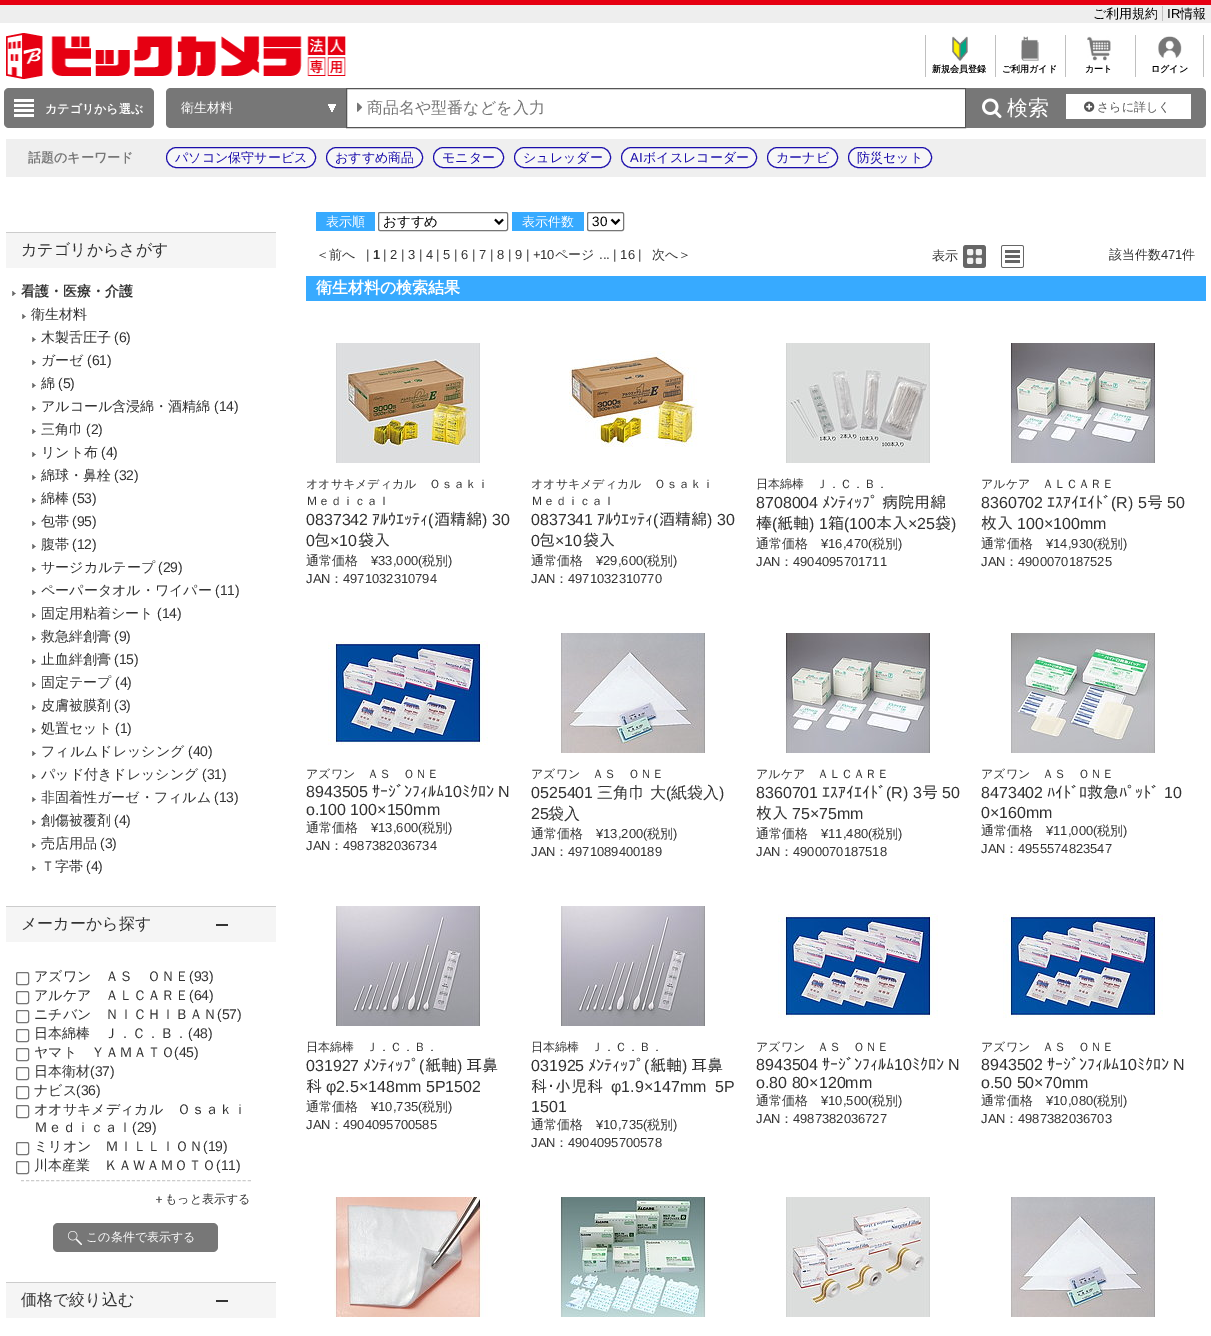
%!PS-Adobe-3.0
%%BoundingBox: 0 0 1211 1336
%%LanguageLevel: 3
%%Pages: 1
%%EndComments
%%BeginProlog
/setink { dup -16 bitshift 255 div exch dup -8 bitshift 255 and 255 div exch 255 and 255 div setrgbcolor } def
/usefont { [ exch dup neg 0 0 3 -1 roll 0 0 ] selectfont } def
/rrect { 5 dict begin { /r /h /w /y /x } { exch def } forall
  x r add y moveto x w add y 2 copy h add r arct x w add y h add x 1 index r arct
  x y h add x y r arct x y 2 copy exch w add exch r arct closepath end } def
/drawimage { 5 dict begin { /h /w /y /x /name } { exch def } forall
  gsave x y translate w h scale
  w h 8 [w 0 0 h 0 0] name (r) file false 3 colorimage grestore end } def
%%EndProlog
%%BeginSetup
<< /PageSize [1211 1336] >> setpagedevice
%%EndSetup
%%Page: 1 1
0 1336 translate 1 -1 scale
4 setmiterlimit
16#FFFFFF setink
0 0 1211 1336 rectfill
16#E60012 setink
0 0 1211 5 rectfill
16#EEEEEE setink
0 5 1211 18 rectfill
/WenQuanYiZenHei-Medium 13 usefont
16#000000 setink
1093 18 moveto (ご利用規約) show
16#C0C0C0 setink
1162 6 1 15 rectfill
/LiberationSans-Regular 13 usefont
16#000000 setink
1167 18 moveto (IR) show
/WenQuanYiZenHei-Medium 13 usefont
1180 18 moveto (情報) show
(img1.raw) 6 33 340 46 drawimage
16#C0C0C0 setink
925 35 1 42 rectfill
(img2.raw) 952 36 16 25 drawimage
/WenQuanYiZenHei-Bold 9 usefont
16#000000 setink
932 72 moveto (新規会員登録) show
16#C0C0C0 setink
995 35 1 42 rectfill
(img3.raw) 1021 36 18 25 drawimage
16#000000 setink
1002 72 moveto (ご利用ガイド) show
16#C0C0C0 setink
1065 35 1 42 rectfill
(img4.raw) 1087 36 24 25 drawimage
16#000000 setink
1085 72 moveto (カート) show
16#C0C0C0 setink
1203 35 1 42 rectfill
1135 35 1 42 rectfill
(img5.raw) 1158 36 24 22 drawimage
16#000000 setink
1151 72 moveto (ログイン) show
16#777777 setink
4 88 150 40 5 rrect fill
(img6.raw) 14 99 20 18 drawimage
/WenQuanYiZenHei-Bold 12 usefont
16#FFFFFF setink
45 113 moveto (カテゴリから選ぶ) show
16#777777 setink
171 88 moveto 346 88 lineto 346 128 lineto 171 128 lineto 168 128 166 126 166 123 curveto 166 93 lineto 166 90 168 88 171 88 curveto closepath fill
(img7.raw) 328 104 8 8 drawimage
/WenQuanYiZenHei-Medium 13 usefont
16#FFFFFF setink
181 112 moveto (衛生材料) show
16#555555 setink
346.5 88.5 619 39 rectstroke
(img8.raw) 357 102 6 10 drawimage
/WenQuanYiZenHei-Medium 16 usefont
16#777777 setink
367 113 moveto (商品名や型番などを入力) show
966 88 100 40 rectfill
(img9.raw) 982 98 20 20 drawimage
/WenQuanYiZenHei-Medium 21 usefont
16#FFFFFF setink
1007 115 moveto (検索) show
16#777777 setink
1066 88 moveto 1201 88 lineto 1204 88 1206 90 1206 93 curveto 1206 123 lineto 1206 126 1204 128 1201 128 curveto 1066 128 lineto closepath fill
16#FFFFFF setink
1066 94 125 25 rectfill
(img10.raw) 1084 101 11 11 drawimage
/WenQuanYiZenHei-Medium 12 usefont
16#555555 setink
1097 111 moveto (さらに詳しく) show
16#EFEFEF setink
6 139 1200 38 rectfill
/WenQuanYiZenHei-Bold 13 usefont
16#777777 setink
28 162 moveto (話題のキーワード) show
16#F7F7F7 setink
166.5 147.5 149 20 10 rrect gsave fill grestore
16#1A0DAB setink
stroke
/WenQuanYiZenHei-Medium 13 usefont
175 162 moveto (パソコン保守サービス) show
16#F7F7F7 setink
326.5 147.5 96 20 10 rrect gsave fill grestore
16#1A0DAB setink
stroke
335 162 moveto (おすすめ商品) show
16#F7F7F7 setink
433.5 147.5 70 20 10 rrect gsave fill grestore
16#1A0DAB setink
stroke
442 162 moveto (モニター) show
16#F7F7F7 setink
514.5 147.5 96 20 10 rrect gsave fill grestore
16#1A0DAB setink
stroke
523 162 moveto (シュレッダー) show
16#F7F7F7 setink
621.5 147.5 135 20 10 rrect gsave fill grestore
16#1A0DAB setink
stroke
/LiberationSans-Regular 13 usefont
630 162 moveto (AI) show
/WenQuanYiZenHei-Medium 13 usefont
643 162 moveto (ボイスレコーダー) show
16#F7F7F7 setink
767.5 147.5 70 20 10 rrect gsave fill grestore
16#1A0DAB setink
stroke
776 162 moveto (カーナビ) show
16#F7F7F7 setink
848.5 147.5 83 20 10 rrect gsave fill grestore
16#1A0DAB setink
stroke
857 162 moveto (防災セット) show
16#F5F5F5 setink
6 233 270 35 rectfill
16#CCCCCC setink
6 232 270 1 rectfill
/WenQuanYiZenHei-Medium 16 usefont
16#333333 setink
21 255 moveto (カテゴリからさがす) show
(img11.raw) 12 291 4 5 drawimage
/WenQuanYiZenHei-Bold 14 usefont
21 296 moveto (看護・医療・介護) show
(img11.raw) 22 314 4 5 drawimage
/WenQuanYiZenHei-Medium 14 usefont
31 319 moveto (衛生材料) show
(img11.raw) 32 337 4 5 drawimage
41 342 moveto (木製舌圧子) show
/LiberationSans-Regular 14 usefont
114 342 moveto (\(6\)) show
(img11.raw) 32 360 4 5 drawimage
/WenQuanYiZenHei-Medium 14 usefont
41 365 moveto (ガーゼ) show
/LiberationSans-Regular 14 usefont
87 365 moveto (\(61\)) show
(img11.raw) 32 383 4 5 drawimage
/WenQuanYiZenHei-Medium 14 usefont
41 388 moveto (綿) show
/LiberationSans-Regular 14 usefont
58 388 moveto (\(5\)) show
(img11.raw) 32 406 4 5 drawimage
/WenQuanYiZenHei-Medium 14 usefont
41 411 moveto (アルコール含浸綿・酒精綿) show
/LiberationSans-Regular 14 usefont
214 411 moveto (\(14\)) show
(img11.raw) 32 429 4 5 drawimage
/WenQuanYiZenHei-Medium 14 usefont
41 434 moveto (三角巾) show
/LiberationSans-Regular 14 usefont
86 434 moveto (\(2\)) show
(img11.raw) 32 452 4 5 drawimage
/WenQuanYiZenHei-Medium 14 usefont
41 457 moveto (リント布) show
/LiberationSans-Regular 14 usefont
101 457 moveto (\(4\)) show
(img11.raw) 32 475 4 5 drawimage
/WenQuanYiZenHei-Medium 14 usefont
41 480 moveto (綿球・鼻栓) show
/LiberationSans-Regular 14 usefont
114 480 moveto (\(32\)) show
(img11.raw) 32 498 4 5 drawimage
/WenQuanYiZenHei-Medium 14 usefont
41 503 moveto (綿棒) show
/LiberationSans-Regular 14 usefont
72 503 moveto (\(53\)) show
(img11.raw) 32 521 4 5 drawimage
/WenQuanYiZenHei-Medium 14 usefont
41 526 moveto (包帯) show
/LiberationSans-Regular 14 usefont
72 526 moveto (\(95\)) show
(img11.raw) 32 544 4 5 drawimage
/WenQuanYiZenHei-Medium 14 usefont
41 549 moveto (腹帯) show
/LiberationSans-Regular 14 usefont
72 549 moveto (\(12\)) show
(img11.raw) 32 567 4 5 drawimage
/WenQuanYiZenHei-Medium 14 usefont
41 572 moveto (サージカルテープ) show
/LiberationSans-Regular 14 usefont
158 572 moveto (\(29\)) show
(img11.raw) 32 590 4 5 drawimage
/WenQuanYiZenHei-Medium 14 usefont
41 595 moveto (ペーパータオル・ワイパー) show
/LiberationSans-Regular 14 usefont
215 595 moveto (\(11\)) show
(img11.raw) 32 613 4 5 drawimage
/WenQuanYiZenHei-Medium 14 usefont
41 618 moveto (固定用粘着シート) show
/LiberationSans-Regular 14 usefont
157 618 moveto (\(14\)) show
(img11.raw) 32 636 4 5 drawimage
/WenQuanYiZenHei-Medium 14 usefont
41 641 moveto (救急絆創膏) show
/LiberationSans-Regular 14 usefont
114 641 moveto (\(9\)) show
(img11.raw) 32 659 4 5 drawimage
/WenQuanYiZenHei-Medium 14 usefont
41 664 moveto (止血絆創膏) show
/LiberationSans-Regular 14 usefont
114 664 moveto (\(15\)) show
(img11.raw) 32 682 4 5 drawimage
/WenQuanYiZenHei-Medium 14 usefont
41 687 moveto (固定テープ) show
/LiberationSans-Regular 14 usefont
115 687 moveto (\(4\)) show
(img11.raw) 32 705 4 5 drawimage
/WenQuanYiZenHei-Medium 14 usefont
41 710 moveto (皮膚被膜剤) show
/LiberationSans-Regular 14 usefont
114 710 moveto (\(3\)) show
(img11.raw) 32 728 4 5 drawimage
/WenQuanYiZenHei-Medium 14 usefont
41 733 moveto (処置セット) show
/LiberationSans-Regular 14 usefont
115 733 moveto (\(1\)) show
(img11.raw) 32 751 4 5 drawimage
/WenQuanYiZenHei-Medium 14 usefont
41 756 moveto (フィルムドレッシング) show
/LiberationSans-Regular 14 usefont
188 756 moveto (\(40\)) show
(img11.raw) 32 774 4 5 drawimage
/WenQuanYiZenHei-Medium 14 usefont
41 779 moveto (パッド付きドレッシング) show
/LiberationSans-Regular 14 usefont
202 779 moveto (\(31\)) show
(img11.raw) 32 797 4 5 drawimage
/WenQuanYiZenHei-Medium 14 usefont
41 802 moveto (非固着性ガーゼ・フィルム) show
/LiberationSans-Regular 14 usefont
214 802 moveto (\(13\)) show
(img11.raw) 32 820 4 5 drawimage
/WenQuanYiZenHei-Medium 14 usefont
41 825 moveto (創傷被覆剤) show
/LiberationSans-Regular 14 usefont
114 825 moveto (\(4\)) show
(img11.raw) 32 843 4 5 drawimage
/WenQuanYiZenHei-Medium 14 usefont
41 848 moveto (売店用品) show
/LiberationSans-Regular 14 usefont
100 848 moveto (\(3\)) show
(img11.raw) 32 866 4 5 drawimage
/WenQuanYiZenHei-Medium 14 usefont
41 871 moveto (Ｔ字帯) show
/LiberationSans-Regular 14 usefont
86 871 moveto (\(4\)) show
[
    [6 907 270 35 16#F5F5F5]
    [216 924 12 2 16#333333]
    [6 906 270 1 16#CCCCCC]
] { aload pop setink rectfill } forall
/WenQuanYiZenHei-Medium 16 usefont
16#333333 setink
21 929 moveto (メーカーから探す) show
16#767676 setink
16.5 972.5 12 12 1.5 rrect stroke
/WenQuanYiZenHei-Medium 14 usefont
16#333333 setink
34 981 moveto (アズワン　ＡＳ　ＯＮＥ) show
/LiberationSans-Regular 14 usefont
189 981 moveto (\(93\)) show
16#767676 setink
16.5 991.5 12 12 1.5 rrect stroke
/WenQuanYiZenHei-Medium 14 usefont
16#333333 setink
34 1000 moveto (アルケア　ＡＬＣＡＲＥ) show
/LiberationSans-Regular 14 usefont
189 1000 moveto (\(64\)) show
16#767676 setink
16.5 1010.5 12 12 1.5 rrect stroke
/WenQuanYiZenHei-Medium 14 usefont
16#333333 setink
34 1019 moveto (ニチバン　ＮＩＣＨＩＢＡＮ) show
/LiberationSans-Regular 14 usefont
217 1019 moveto (\(57\)) show
16#767676 setink
16.5 1029.5 12 12 1.5 rrect stroke
/WenQuanYiZenHei-Medium 14 usefont
16#333333 setink
34 1038 moveto (日本綿棒　Ｊ．Ｃ．Ｂ．) show
/LiberationSans-Regular 14 usefont
188 1038 moveto (\(48\)) show
16#767676 setink
16.5 1048.5 12 12 1.5 rrect stroke
/WenQuanYiZenHei-Medium 14 usefont
16#333333 setink
34 1057 moveto (ヤマト　ＹＡＭＡＴＯ) show
/LiberationSans-Regular 14 usefont
174 1057 moveto (\(45\)) show
16#767676 setink
16.5 1067.5 12 12 1.5 rrect stroke
/WenQuanYiZenHei-Medium 14 usefont
16#333333 setink
34 1076 moveto (日本衛材) show
/LiberationSans-Regular 14 usefont
90 1076 moveto (\(37\)) show
16#767676 setink
16.5 1086.5 12 12 1.5 rrect stroke
/WenQuanYiZenHei-Medium 14 usefont
16#333333 setink
34 1095 moveto (ナビス) show
/LiberationSans-Regular 14 usefont
76 1095 moveto (\(36\)) show
16#767676 setink
16.5 1105.5 12 12 1.5 rrect stroke
/WenQuanYiZenHei-Medium 14 usefont
16#333333 setink
34 1114 moveto (オオサキメディカル　Ｏｓａｋｉ) show
34 1132 moveto (Ｍｅｄｉｃａｌ) show
/LiberationSans-Regular 14 usefont
132 1132 moveto (\(29\)) show
16#767676 setink
16.5 1142.5 12 12 1.5 rrect stroke
/WenQuanYiZenHei-Medium 14 usefont
16#333333 setink
34 1151 moveto (ミリオン　ＭＩＬＬＩＯＮ) show
/LiberationSans-Regular 14 usefont
203 1151 moveto (\(19\)) show
16#767676 setink
16.5 1161.5 12 12 1.5 rrect stroke
/WenQuanYiZenHei-Medium 14 usefont
16#333333 setink
34 1170 moveto (川本産業　ＫＡＷＡＭＯＴＯ) show
/LiberationSans-Regular 14 usefont
216 1170 moveto (\(11\)) show
16#CCCCCC setink
[3 2.04] 0 setdash
21 1180.5 moveto 251 1180.5 lineto stroke
/WenQuanYiZenHei-Medium 12 usefont
16#333333 setink
153 1203 moveto (＋もっと表示する) show
16#777777 setink
53 1223 165 29 5 rrect fill
(img12.raw) 68 1231 14 14 drawimage
16#FFFFFF setink
86 1241 moveto (この条件で表示する) show
[
    [6 1283 270 35 16#F5F5F5]
    [216 1300 12 2 16#333333]
    [6 1282 270 1 16#CCCCCC]
] { aload pop setink rectfill } forall
/WenQuanYiZenHei-Medium 16 usefont
16#333333 setink
21 1305 moveto (価格で絞り込む) show
16#37AAFF setink
316 212 59 19 rectfill
/WenQuanYiZenHei-Medium 13 usefont
16#FFFFFF setink
326 226 moveto (表示順) show
16#767676 setink
[] 0 setdash
378.5 212.5 129 18 1.5 rrect stroke
16#000000 setink
2 setlinewidth
495 219.5 moveto 499 223.5 lineto 503 219.5 lineto stroke
/WenQuanYiZenHei-Medium 13.5 usefont
383 226 moveto (おすすめ) show
16#37AAFF setink
512 212 72 19 rectfill
/WenQuanYiZenHei-Medium 13 usefont
16#FFFFFF setink
522 226 moveto (表示件数) show
16#767676 setink
1 setlinewidth
587.5 212.5 36 18 1.5 rrect stroke
16#000000 setink
2 setlinewidth
611.5 219.5 moveto 615.5 223.5 lineto 619.5 219.5 lineto stroke
/LiberationSans-Regular 13.5 usefont
592 226 moveto (30) show
/WenQuanYiZenHei-Medium 13 usefont
16#333333 setink
316 259 moveto (＜前へ) show
/LiberationSans-Regular 13 usefont
366 259 moveto (|) show
/LiberationSans-Bold 13 usefont
373 259 moveto (1) show
/LiberationSans-Regular 13 usefont
383 259 moveto (| 2 | 3 | 4 | 5 | 6 | 7 | 8 | 9 | +10) show
/WenQuanYiZenHei-Medium 13 usefont
555 259 moveto (ページ) show
/LiberationSans-Regular 13 usefont
599 259 moveto (... | 16 |) show
/WenQuanYiZenHei-Medium 13 usefont
652 259 moveto (次へ＞) show
932 260 moveto (表示) show
(img13.raw) 963 245 23 23 drawimage
(img14.raw) 1001 245 23 23 drawimage
1109 259 moveto (該当件数) show
/LiberationSans-Regular 13 usefont
1161 259 moveto (471) show
/WenQuanYiZenHei-Medium 13 usefont
1182 259 moveto (件) show
16#37AAFF setink
306 276 900 25 rectfill
/WenQuanYiZenHei-Bold 16 usefont
16#FFFFFF setink
316 293 moveto (衛生材料の検索結果) show
(img15.raw) 336 343 144 120 drawimage
/WenQuanYiZenHei-Medium 12 usefont
16#333333 setink
306 488 moveto (オオサキメディカル　Ｏｓａｋｉ) show
306 505 moveto (Ｍｅｄｉｃａｌ) show
/LiberationSans-Regular 16 usefont
306 525 moveto (0837342) show
/IPAPGothic-Regular 16 usefont
372 525 moveto (ｱﾙｳｴｯﾃｨ) show
/LiberationSans-Regular 16 usefont
428 525 moveto (\() show
/IPAPGothic-Regular 16 usefont
434 525 moveto (酒精綿) show
/LiberationSans-Regular 16 usefont
482 525 moveto (\) 30) show
306 546 moveto (0) show
/IPAPGothic-Regular 16 usefont
314 546 moveto (包) show
/LiberationSans-Regular 16 usefont
330 546 moveto (×10) show
/IPAPGothic-Regular 16 usefont
358 546 moveto (袋入) show
/WenQuanYiZenHei-Medium 13 usefont
306 565 moveto (通常価格) show
/LiberationSans-Regular 13 usefont
371 565 moveto (¥33,000\() show
/WenQuanYiZenHei-Medium 13 usefont
422 565 moveto (税別) show
/LiberationSans-Regular 13 usefont
448 565 moveto (\)) show
306 583 moveto (JAN) show
/WenQuanYiZenHei-Medium 13 usefont
330 583 moveto (：) show
/LiberationSans-Regular 13 usefont
343 583 moveto (4971032310794) show
(img16.raw) 569 351 129 96 drawimage
/WenQuanYiZenHei-Medium 12 usefont
531 488 moveto (オオサキメディカル　Ｏｓａｋｉ) show
531 505 moveto (Ｍｅｄｉｃａｌ) show
/LiberationSans-Regular 16 usefont
531 525 moveto (0837341) show
/IPAPGothic-Regular 16 usefont
597 525 moveto (ｱﾙｳｴｯﾃｨ) show
/LiberationSans-Regular 16 usefont
653 525 moveto (\() show
/IPAPGothic-Regular 16 usefont
659 525 moveto (酒精綿) show
/LiberationSans-Regular 16 usefont
707 525 moveto (\) 30) show
531 546 moveto (0) show
/IPAPGothic-Regular 16 usefont
539 546 moveto (包) show
/LiberationSans-Regular 16 usefont
555 546 moveto (×10) show
/IPAPGothic-Regular 16 usefont
583 546 moveto (袋入) show
/WenQuanYiZenHei-Medium 13 usefont
531 565 moveto (通常価格) show
/LiberationSans-Regular 13 usefont
596 565 moveto (¥29,600\() show
/WenQuanYiZenHei-Medium 13 usefont
647 565 moveto (税別) show
/LiberationSans-Regular 13 usefont
673 565 moveto (\)) show
531 583 moveto (JAN) show
/WenQuanYiZenHei-Medium 13 usefont
555 583 moveto (：) show
/LiberationSans-Regular 13 usefont
568 583 moveto (4971032310770) show
(img17.raw) 786 343 144 120 drawimage
/WenQuanYiZenHei-Medium 12 usefont
756 488 moveto (日本綿棒　Ｊ．Ｃ．Ｂ．) show
/LiberationSans-Regular 16 usefont
756 508 moveto (8708004) show
/IPAPGothic-Regular 16 usefont
822 508 moveto (ﾒﾝﾃｨｯﾌﾟ 病院用綿) show
756 529 moveto (棒) show
/LiberationSans-Regular 16 usefont
772 529 moveto (\() show
/IPAPGothic-Regular 16 usefont
777 529 moveto (紙軸) show
/LiberationSans-Regular 16 usefont
809 529 moveto (\) 1) show
/IPAPGothic-Regular 16 usefont
828 529 moveto (箱) show
/LiberationSans-Regular 16 usefont
844 529 moveto (\(100) show
/IPAPGothic-Regular 16 usefont
876 529 moveto (本入) show
/LiberationSans-Regular 16 usefont
908 529 moveto (×25) show
/IPAPGothic-Regular 16 usefont
935 529 moveto (袋) show
/LiberationSans-Regular 16 usefont
951 529 moveto (\)) show
/WenQuanYiZenHei-Medium 13 usefont
756 548 moveto (通常価格) show
/LiberationSans-Regular 13 usefont
821 548 moveto (¥16,470\() show
/WenQuanYiZenHei-Medium 13 usefont
872 548 moveto (税別) show
/LiberationSans-Regular 13 usefont
898 548 moveto (\)) show
756 566 moveto (JAN) show
/WenQuanYiZenHei-Medium 13 usefont
780 566 moveto (：) show
/LiberationSans-Regular 13 usefont
793 566 moveto (4904095701711) show
(img18.raw) 1011 343 144 120 drawimage
/WenQuanYiZenHei-Medium 12 usefont
981 488 moveto (アルケア　ＡＬＣＡＲＥ) show
/LiberationSans-Regular 16 usefont
981 508 moveto (8360702) show
/IPAPGothic-Regular 16 usefont
1047 508 moveto (ｴｽｱｲｴｲﾄﾞ) show
/LiberationSans-Regular 16 usefont
1111 508 moveto (\(R\) 5) show
/IPAPGothic-Regular 16 usefont
1147 508 moveto (号) show
/LiberationSans-Regular 16 usefont
1167 508 moveto (50) show
/IPAPGothic-Regular 16 usefont
981 529 moveto (枚入) show
/LiberationSans-Regular 16 usefont
1017 529 moveto (100×100mm) show
/WenQuanYiZenHei-Medium 13 usefont
981 548 moveto (通常価格) show
/LiberationSans-Regular 13 usefont
1046 548 moveto (¥14,930\() show
/WenQuanYiZenHei-Medium 13 usefont
1097 548 moveto (税別) show
/LiberationSans-Regular 13 usefont
1123 548 moveto (\)) show
981 566 moveto (JAN) show
/WenQuanYiZenHei-Medium 13 usefont
1005 566 moveto (：) show
/LiberationSans-Regular 13 usefont
1018 566 moveto (4900070187525) show
(img19.raw) 328 641 160 104 drawimage
/WenQuanYiZenHei-Medium 12 usefont
306 778 moveto (アズワン　ＡＳ　ＯＮＥ) show
/LiberationSans-Regular 16 usefont
306 797 moveto (8943505) show
/IPAPGothic-Regular 16 usefont
372 797 moveto (ｻｰｼﾞﾝﾌｨﾙﾑ) show
/LiberationSans-Regular 16 usefont
444 797 moveto (10) show
/IPAPGothic-Regular 16 usefont
462 797 moveto (ﾐｸﾛﾝ) show
/LiberationSans-Regular 16 usefont
498 797 moveto (N) show
306 815 moveto (o.100 100×150mm) show
/WenQuanYiZenHei-Medium 13 usefont
306 832 moveto (通常価格) show
/LiberationSans-Regular 13 usefont
371 832 moveto (¥13,600\() show
/WenQuanYiZenHei-Medium 13 usefont
422 832 moveto (税別) show
/LiberationSans-Regular 13 usefont
448 832 moveto (\)) show
306 850 moveto (JAN) show
/WenQuanYiZenHei-Medium 13 usefont
330 850 moveto (：) show
/LiberationSans-Regular 13 usefont
343 850 moveto (4987382036734) show
(img20.raw) 561 633 144 120 drawimage
/WenQuanYiZenHei-Medium 12 usefont
531 778 moveto (アズワン　ＡＳ　ＯＮＥ) show
/LiberationSans-Regular 16 usefont
531 798 moveto (0525401) show
/WenQuanYiZenHei-Medium 16 usefont
597 798 moveto (三角巾 大) show
/LiberationSans-Regular 16 usefont
666 798 moveto (\() show
/WenQuanYiZenHei-Medium 16 usefont
671 798 moveto (紙袋入) show
/LiberationSans-Regular 16 usefont
719 798 moveto (\)) show
531 819 moveto (25) show
/WenQuanYiZenHei-Medium 16 usefont
548 819 moveto (袋入) show
/WenQuanYiZenHei-Medium 13 usefont
531 838 moveto (通常価格) show
/LiberationSans-Regular 13 usefont
596 838 moveto (¥13,200\() show
/WenQuanYiZenHei-Medium 13 usefont
647 838 moveto (税別) show
/LiberationSans-Regular 13 usefont
673 838 moveto (\)) show
531 856 moveto (JAN) show
/WenQuanYiZenHei-Medium 13 usefont
555 856 moveto (：) show
/LiberationSans-Regular 13 usefont
568 856 moveto (4971089400189) show
(img18.raw) 786 633 144 120 drawimage
/WenQuanYiZenHei-Medium 12 usefont
756 778 moveto (アルケア　ＡＬＣＡＲＥ) show
/LiberationSans-Regular 16 usefont
756 798 moveto (8360701) show
/IPAPGothic-Regular 16 usefont
822 798 moveto (ｴｽｱｲｴｲﾄﾞ) show
/LiberationSans-Regular 16 usefont
886 798 moveto (\(R\) 3) show
/IPAPGothic-Regular 16 usefont
922 798 moveto (号) show
/LiberationSans-Regular 16 usefont
942 798 moveto (50) show
/IPAPGothic-Regular 16 usefont
756 819 moveto (枚入) show
/LiberationSans-Regular 16 usefont
792 819 moveto (75×75mm) show
/WenQuanYiZenHei-Medium 13 usefont
756 838 moveto (通常価格) show
/LiberationSans-Regular 13 usefont
821 838 moveto (¥11,480\() show
/WenQuanYiZenHei-Medium 13 usefont
872 838 moveto (税別) show
/LiberationSans-Regular 13 usefont
898 838 moveto (\)) show
756 856 moveto (JAN) show
/WenQuanYiZenHei-Medium 13 usefont
780 856 moveto (：) show
/LiberationSans-Regular 13 usefont
793 856 moveto (4900070187518) show
(img21.raw) 1011 633 144 120 drawimage
/WenQuanYiZenHei-Medium 12 usefont
981 778 moveto (アズワン　ＡＳ　ＯＮＥ) show
/LiberationSans-Regular 16 usefont
981 798 moveto (8473402) show
/IPAPGothic-Regular 16 usefont
1047 798 moveto (ﾊｲﾄﾞﾛ救急ﾊﾟｯﾄﾞ) show
/LiberationSans-Regular 16 usefont
1164 798 moveto (10) show
981 818 moveto (0×160mm) show
/WenQuanYiZenHei-Medium 13 usefont
981 835 moveto (通常価格) show
/LiberationSans-Regular 13 usefont
1046 835 moveto (¥11,000\() show
/WenQuanYiZenHei-Medium 13 usefont
1097 835 moveto (税別) show
/LiberationSans-Regular 13 usefont
1123 835 moveto (\)) show
981 853 moveto (JAN) show
/WenQuanYiZenHei-Medium 13 usefont
1005 853 moveto (：) show
/LiberationSans-Regular 13 usefont
1018 853 moveto (4955574823547) show
(img22.raw) 336 906 144 120 drawimage
/WenQuanYiZenHei-Medium 12 usefont
306 1051 moveto (日本綿棒　Ｊ．Ｃ．Ｂ．) show
/LiberationSans-Regular 16 usefont
306 1071 moveto (031927) show
/IPAPGothic-Regular 16 usefont
363 1071 moveto (ﾒﾝﾃｨｯﾌﾟ) show
/LiberationSans-Regular 16 usefont
419 1071 moveto (\() show
/IPAPGothic-Regular 16 usefont
425 1071 moveto (紙軸) show
/LiberationSans-Regular 16 usefont
457 1071 moveto (\)) show
/IPAPGothic-Regular 16 usefont
466 1071 moveto (耳鼻) show
306 1092 moveto (科) show
/LiberationSans-Regular 16 usefont
326 1092 moveto (φ2.5×148mm 5P1502) show
/WenQuanYiZenHei-Medium 13 usefont
306 1111 moveto (通常価格) show
/LiberationSans-Regular 13 usefont
371 1111 moveto (¥10,735\() show
/WenQuanYiZenHei-Medium 13 usefont
422 1111 moveto (税別) show
/LiberationSans-Regular 13 usefont
448 1111 moveto (\)) show
306 1129 moveto (JAN) show
/WenQuanYiZenHei-Medium 13 usefont
330 1129 moveto (：) show
/LiberationSans-Regular 13 usefont
343 1129 moveto (4904095700585) show
(img22.raw) 561 906 144 120 drawimage
/WenQuanYiZenHei-Medium 12 usefont
531 1051 moveto (日本綿棒　Ｊ．Ｃ．Ｂ．) show
/LiberationSans-Regular 16 usefont
531 1071 moveto (031925) show
/IPAPGothic-Regular 16 usefont
588 1071 moveto (ﾒﾝﾃｨｯﾌﾟ) show
/LiberationSans-Regular 16 usefont
644 1071 moveto (\() show
/IPAPGothic-Regular 16 usefont
650 1071 moveto (紙軸) show
/LiberationSans-Regular 16 usefont
682 1071 moveto (\)) show
/IPAPGothic-Regular 16 usefont
691 1071 moveto (耳鼻) show
531 1092 moveto (科・小児科) show
/LiberationSans-Regular 16 usefont
611 1092 moveto 4 0 32 (φ1.9×147mm 5P) widthshow
531 1112 moveto (1501) show
/WenQuanYiZenHei-Medium 13 usefont
531 1129 moveto (通常価格) show
/LiberationSans-Regular 13 usefont
596 1129 moveto (¥10,735\() show
/WenQuanYiZenHei-Medium 13 usefont
647 1129 moveto (税別) show
/LiberationSans-Regular 13 usefont
673 1129 moveto (\)) show
531 1147 moveto (JAN) show
/WenQuanYiZenHei-Medium 13 usefont
555 1147 moveto (：) show
/LiberationSans-Regular 13 usefont
568 1147 moveto (4904095700578) show
(img19.raw) 778 914 160 104 drawimage
/WenQuanYiZenHei-Medium 12 usefont
756 1051 moveto (アズワン　ＡＳ　ＯＮＥ) show
/LiberationSans-Regular 16 usefont
756 1070 moveto (8943504) show
/IPAPGothic-Regular 16 usefont
822 1070 moveto (ｻｰｼﾞﾝﾌｨﾙﾑ) show
/LiberationSans-Regular 16 usefont
894 1070 moveto (10) show
/IPAPGothic-Regular 16 usefont
912 1070 moveto (ﾐｸﾛﾝ) show
/LiberationSans-Regular 16 usefont
948 1070 moveto (N) show
756 1088 moveto (o.80 80×120mm) show
/WenQuanYiZenHei-Medium 13 usefont
756 1105 moveto (通常価格) show
/LiberationSans-Regular 13 usefont
821 1105 moveto (¥10,500\() show
/WenQuanYiZenHei-Medium 13 usefont
872 1105 moveto (税別) show
/LiberationSans-Regular 13 usefont
898 1105 moveto (\)) show
756 1123 moveto (JAN) show
/WenQuanYiZenHei-Medium 13 usefont
780 1123 moveto (：) show
/LiberationSans-Regular 13 usefont
793 1123 moveto (4987382036727) show
(img19.raw) 1003 914 160 104 drawimage
/WenQuanYiZenHei-Medium 12 usefont
981 1051 moveto (アズワン　ＡＳ　ＯＮＥ) show
/LiberationSans-Regular 16 usefont
981 1070 moveto (8943502) show
/IPAPGothic-Regular 16 usefont
1047 1070 moveto (ｻｰｼﾞﾝﾌｨﾙﾑ) show
/LiberationSans-Regular 16 usefont
1119 1070 moveto (10) show
/IPAPGothic-Regular 16 usefont
1137 1070 moveto (ﾐｸﾛﾝ) show
/LiberationSans-Regular 16 usefont
1173 1070 moveto (N) show
981 1088 moveto (o.50 50×70mm) show
/WenQuanYiZenHei-Medium 13 usefont
981 1105 moveto (通常価格) show
/LiberationSans-Regular 13 usefont
1046 1105 moveto (¥10,080\() show
/WenQuanYiZenHei-Medium 13 usefont
1097 1105 moveto (税別) show
/LiberationSans-Regular 13 usefont
1123 1105 moveto (\)) show
981 1123 moveto (JAN) show
/WenQuanYiZenHei-Medium 13 usefont
1005 1123 moveto (：) show
/LiberationSans-Regular 13 usefont
1018 1123 moveto (4987382036703) show
(img23.raw) 334 1197 154 120 drawimage
(img24.raw) 560 1197 146 120 drawimage
(img25.raw) 786 1197 144 120 drawimage
(img20.raw) 1011 1197 144 120 drawimage
showpage
%%EOF
